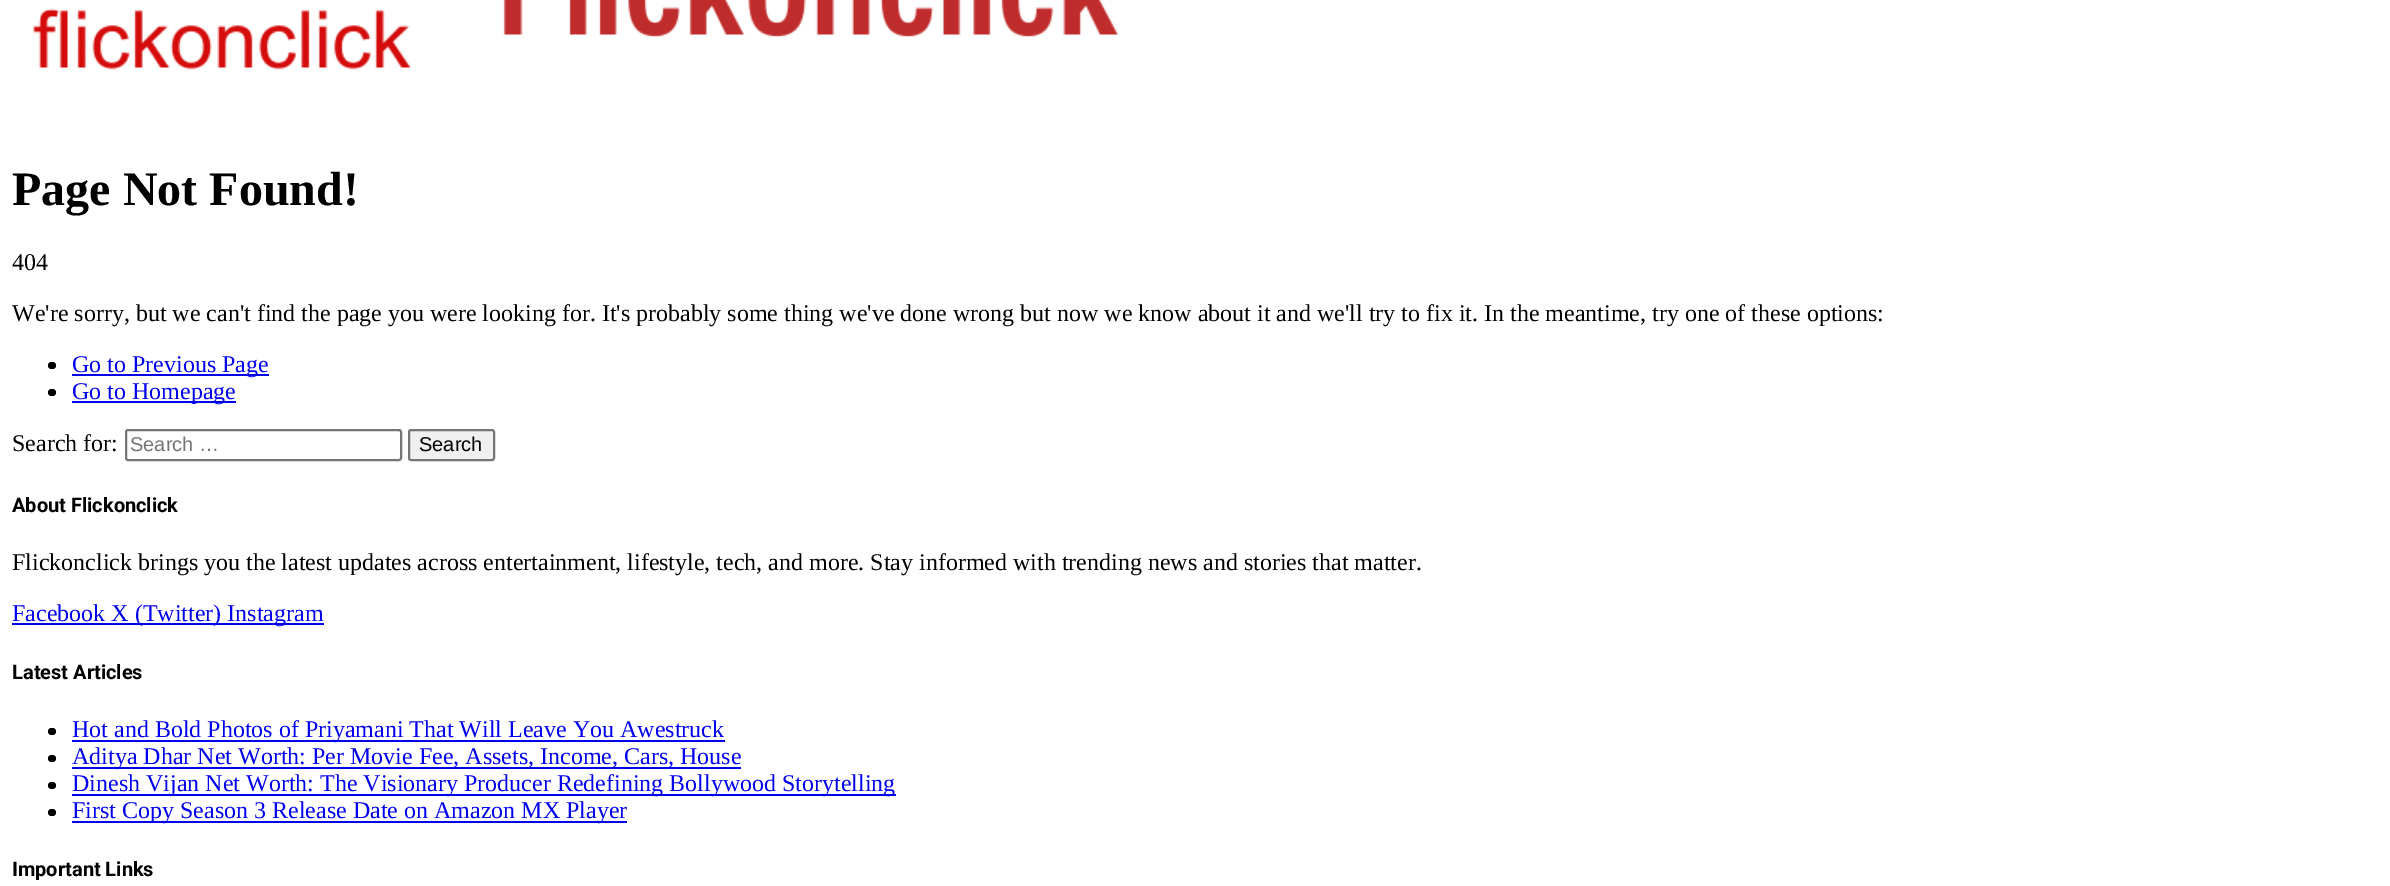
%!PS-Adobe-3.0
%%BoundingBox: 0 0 2390 886
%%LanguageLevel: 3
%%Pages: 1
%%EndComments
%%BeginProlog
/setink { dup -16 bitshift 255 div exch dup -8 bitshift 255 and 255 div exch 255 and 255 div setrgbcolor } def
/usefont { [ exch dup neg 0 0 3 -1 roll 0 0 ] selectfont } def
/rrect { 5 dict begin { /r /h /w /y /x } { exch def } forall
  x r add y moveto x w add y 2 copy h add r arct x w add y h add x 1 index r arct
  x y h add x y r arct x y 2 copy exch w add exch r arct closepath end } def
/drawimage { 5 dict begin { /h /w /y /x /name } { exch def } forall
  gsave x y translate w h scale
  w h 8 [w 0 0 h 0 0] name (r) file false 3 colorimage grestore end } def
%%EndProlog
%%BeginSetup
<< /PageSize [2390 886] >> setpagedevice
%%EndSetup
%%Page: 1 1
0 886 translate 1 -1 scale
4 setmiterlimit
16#FFFFFF setink
0 0 2390 886 rectfill
(img1.raw) 32 8 380 62 drawimage
(img2.raw) 503 0 615 38 drawimage
/LiberationSerif-Bold 48 usefont
16#000000 setink
12 205 moveto (Page Not Found!) show
/LiberationSerif-Regular 24 usefont
12 270 moveto (404) show
12 321 moveto (We're sorry, but we can't find the page you were looking for. It's probably some thing we've done wrong but now we know about it and we'll try to fix it. In the meantime, try one of these options:) show
48 362 8 7 3.5 rrect fill
16#0000EE setink
72 374 197 2 rectfill
72 372 moveto (Go to Previous Page) show
16#000000 setink
48 389 8 7 3.5 rrect fill
16#0000EE setink
72 401 164 2 rectfill
72 399 moveto (Go to Homepage) show
16#000000 setink
12 451 moveto (Search for:) show
16#767676 setink
2 setlinewidth
126 430 275 30 2 rrect stroke
/LiberationSans-Regular 20 usefont
16#757575 setink
130 451 moveto (Search …) show
16#EFEFEF setink
409 430 85 30 2 rrect gsave fill grestore
16#767676 setink
stroke
16#000000 setink
419 451 moveto (Search) show
/Roboto-Bold 20 usefont
12 512 moveto (About Flickonclick) show
/LiberationSerif-Regular 24 usefont
12 570 moveto (Flickonclick brings you the latest updates across entertainment, lifestyle, tech, and more. Stay informed with trending news and stories that matter.) show
16#0000EE setink
12 623 312 2 rectfill
12 621 moveto (Facebook X \(Twitter\) Instagram) show
/Roboto-Bold 20 usefont
16#000000 setink
12 679 moveto (Latest Articles) show
48 728 8 7 3.5 rrect fill
16#0000EE setink
72 740 653 2 rectfill
/LiberationSerif-Regular 24 usefont
72 737 moveto (Hot and Bold Photos of Priyamani That Will Leave You Awestruck) show
16#000000 setink
48 755 8 7 3.5 rrect fill
16#0000EE setink
72 767 669 2 rectfill
72 764 moveto (Aditya Dhar Net Worth: Per Movie Fee, Assets, Income, Cars, House) show
16#000000 setink
48 782 8 7 3.5 rrect fill
16#0000EE setink
72 794 824 2 rectfill
72 791 moveto (Dinesh Vijan Net Worth: The Visionary Producer Redefining Bollywood Storytelling) show
16#000000 setink
48 809 8 7 3.5 rrect fill
16#0000EE setink
72 821 555 2 rectfill
72 818 moveto (First Copy Season 3 Release Date on Amazon MX Player) show
/Roboto-Bold 20 usefont
16#000000 setink
12 876 moveto (Important Links) show
showpage
%%EOF
